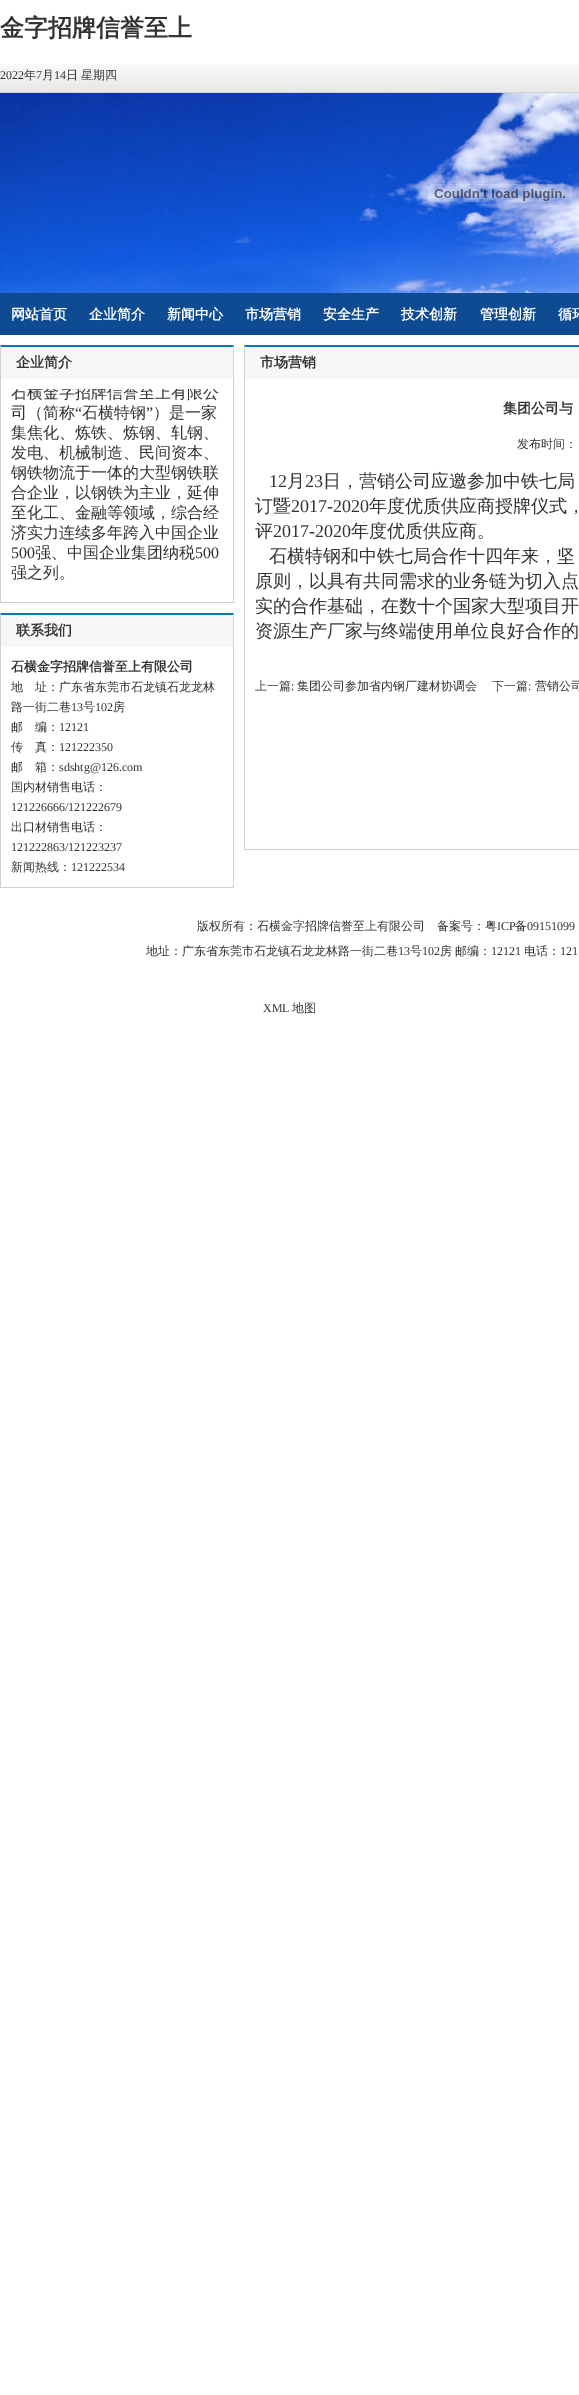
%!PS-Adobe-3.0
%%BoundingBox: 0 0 579 2395
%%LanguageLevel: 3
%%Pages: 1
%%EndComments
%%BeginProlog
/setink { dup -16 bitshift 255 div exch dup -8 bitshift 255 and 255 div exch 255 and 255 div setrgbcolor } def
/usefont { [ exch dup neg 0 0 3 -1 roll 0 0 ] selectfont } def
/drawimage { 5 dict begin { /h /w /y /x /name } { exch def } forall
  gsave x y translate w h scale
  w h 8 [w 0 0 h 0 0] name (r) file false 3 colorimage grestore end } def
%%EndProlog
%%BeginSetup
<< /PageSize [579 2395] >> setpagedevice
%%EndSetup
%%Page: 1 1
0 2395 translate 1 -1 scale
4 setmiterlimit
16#FFFFFF setink
0 0 579 2395 rectfill
/WenQuanYiZenHei-Bold 24 usefont
16#333333 setink
0 36 moveto (金字招牌信誉至上) show
(img1.raw) 0 64 579 29 drawimage
/LiberationSerif-Regular 12 usefont
0 79 moveto (2022) show
/WenQuanYiZenHei-Medium 12 usefont
24 79 moveto (年) show
/LiberationSerif-Regular 12 usefont
36 79 moveto (7) show
/WenQuanYiZenHei-Medium 12 usefont
42 79 moveto (月) show
/LiberationSerif-Regular 12 usefont
54 79 moveto (14) show
/WenQuanYiZenHei-Medium 12 usefont
66 79 moveto (日) show
81 79 moveto (星期四) show
(img2.raw) 0 93 579 200 drawimage
(img3.raw) 428 184 144 18 drawimage
16#0F4B93 setink
0 293 579 42 rectfill
/WenQuanYiZenHei-Bold 14 usefont
16#FFFFFF setink
[
    [(网站首页) 11 319]
    [(企业简介) 89 319]
    [(新闻中心) 167 319]
    [(市场营销) 245 319]
    [(安全生产) 323 319]
    [(技术创新) 401 319]
    [(管理创新) 480 319]
    [(循环) 558 319]
] { aload pop moveto show } forall
16#0778B0 setink
0 345 moveto 234 345 lineto 233 347 lineto 1 347 lineto closepath fill
16#CFCFCF setink
234 345 moveto 234 603 lineto 233 602 lineto 233 347 lineto closepath fill
0 602 234 1 rectfill
0 603 moveto 0 345 lineto 1 347 lineto 1 602 lineto closepath fill
16#F7F7F7 setink
1 347 232 32 rectfill
16#333333 setink
16 367 moveto (企业简介) show
gsave
11 389 210 200 rectclip
/WenQuanYiZenHei-Medium 16 usefont
11 398 moveto (石横金字招牌信誉至上有限公) show
grestore
/WenQuanYiZenHei-Medium 16 usefont
11 418 moveto (司（简称) show
/LiberationSerif-Regular 16 usefont
75 418 moveto (“) show
/WenQuanYiZenHei-Medium 16 usefont
82 418 moveto (石横特钢) show
/LiberationSerif-Regular 16 usefont
146 418 moveto (”) show
/WenQuanYiZenHei-Medium 16 usefont
[
    [(）是一家) 153 418]
    [(集焦化、炼铁、炼钢、轧钢、) 11 438]
    [(发电、机械制造、民间资本、) 11 458]
    [(钢铁物流于一体的大型钢铁联) 11 478]
    [(合企业，以钢铁为主业，延伸) 11 498]
    [(至化工、金融等领域，综合经) 11 518]
    [(济实力连续多年跨入中国企业) 11 538]
] { aload pop moveto show } forall
/LiberationSerif-Regular 16 usefont
11 558 moveto (500) show
/WenQuanYiZenHei-Medium 16 usefont
35 558 moveto (强、中国企业集团纳税) show
/LiberationSerif-Regular 16 usefont
195 558 moveto (500) show
/WenQuanYiZenHei-Medium 16 usefont
11 578 moveto (强之列。) show
16#0778B0 setink
0 613 moveto 234 613 lineto 233 615 lineto 1 615 lineto closepath fill
16#CFCFCF setink
234 613 moveto 234 888 lineto 233 887 lineto 233 615 lineto closepath fill
0 887 234 1 rectfill
0 888 moveto 0 613 lineto 1 615 lineto 1 887 lineto closepath fill
16#F7F7F7 setink
1 615 232 32 rectfill
/WenQuanYiZenHei-Bold 14 usefont
16#333333 setink
16 635 moveto (联系我们) show
/WenQuanYiZenHei-Bold 13 usefont
11 671 moveto (石横金字招牌信誉至上有限公司) show
/WenQuanYiZenHei-Medium 12 usefont
[
    [(地) 11 691]
    [(址：广东省东莞市石龙镇石龙龙林) 35 691]
    [(路一街二巷) 11 711]
] { aload pop moveto show } forall
/LiberationSerif-Regular 12 usefont
71 711 moveto (13) show
/WenQuanYiZenHei-Medium 12 usefont
83 711 moveto (号) show
/LiberationSerif-Regular 12 usefont
95 711 moveto (102) show
/WenQuanYiZenHei-Medium 12 usefont
[
    [(房) 113 711]
    [(邮) 11 731]
    [(编：) 35 731]
] { aload pop moveto show } forall
/LiberationSerif-Regular 12 usefont
59 731 moveto (12121) show
/WenQuanYiZenHei-Medium 12 usefont
11 751 moveto (传) show
35 751 moveto (真：) show
/LiberationSerif-Regular 12 usefont
59 751 moveto (121222350) show
/WenQuanYiZenHei-Medium 12 usefont
11 771 moveto (邮) show
35 771 moveto (箱：) show
/LiberationSerif-Regular 12 usefont
59 771 moveto (sdshtg@126.com) show
/WenQuanYiZenHei-Medium 12 usefont
11 791 moveto (国内材销售电话：) show
/LiberationSerif-Regular 12 usefont
11 811 moveto (121226666/121222679) show
/WenQuanYiZenHei-Medium 12 usefont
11 831 moveto (出口材销售电话：) show
/LiberationSerif-Regular 12 usefont
11 851 moveto (121222863/121223237) show
/WenQuanYiZenHei-Medium 12 usefont
11 871 moveto (新闻热线：) show
/LiberationSerif-Regular 12 usefont
71 871 moveto (121222534) show
16#0778B0 setink
244 345 moveto 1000 345 lineto 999 347 lineto 245 347 lineto closepath fill
16#CFCFCF setink
244 849 335 1 rectfill
244 850 moveto 244 345 lineto 245 347 lineto 245 849 lineto closepath fill
16#F7F7F7 setink
245 347 334 32 rectfill
/WenQuanYiZenHei-Bold 14 usefont
16#333333 setink
260 367 moveto (市场营销) show
503 413 moveto (集团公司与) show
/WenQuanYiZenHei-Medium 12 usefont
517 448 moveto (发布时间：) show
/LiberationSerif-Regular 18 usefont
269 487 moveto (12) show
/WenQuanYiZenHei-Medium 18 usefont
287 487 moveto (月) show
/LiberationSerif-Regular 18 usefont
305 487 moveto (23) show
/WenQuanYiZenHei-Medium 18 usefont
323 487 moveto (日，营销公司应邀参加中铁七局) show
255 512 moveto (订暨) show
/LiberationSerif-Regular 18 usefont
291 512 moveto (2017-2020) show
/WenQuanYiZenHei-Medium 18 usefont
369 512 moveto (年度优质供应商授牌仪式，) show
255 537 moveto (评) show
/LiberationSerif-Regular 18 usefont
273 537 moveto (2017-2020) show
/WenQuanYiZenHei-Medium 18 usefont
[
    [(年度优质供应商。) 351 537]
    [(石横特钢和中铁七局合作十四年来，坚) 269 562]
    [(原则，以具有共同需求的业务链为切入点) 255 587]
    [(实的合作基础，在数十个国家大型项目开) 255 612]
    [(资源生产厂家与终端使用单位良好合作的) 255 637]
] { aload pop moveto show } forall
/WenQuanYiZenHei-Medium 12 usefont
255 690 moveto (上一篇) show
/LiberationSerif-Regular 12 usefont
291 690 moveto (:) show
/WenQuanYiZenHei-Medium 12 usefont
297 690 moveto (集团公司参加省内钢厂建材协调会) show
492 690 moveto (下一篇) show
/LiberationSerif-Regular 12 usefont
528 690 moveto (:) show
/WenQuanYiZenHei-Medium 12 usefont
[
    [(营销公司) 535 690]
    [(版权所有：石横金字招牌信誉至上有限公司) 197 930]
    [(备案号：粤) 437 930]
] { aload pop moveto show } forall
/LiberationSerif-Regular 12 usefont
497 930 moveto (ICP) show
/WenQuanYiZenHei-Medium 12 usefont
515 930 moveto (备) show
/LiberationSerif-Regular 12 usefont
527 930 moveto (09151099) show
/WenQuanYiZenHei-Medium 12 usefont
146 955 moveto (地址：广东省东莞市石龙镇石龙龙林路一街二巷) show
/LiberationSerif-Regular 12 usefont
398 955 moveto (13) show
/WenQuanYiZenHei-Medium 12 usefont
410 955 moveto (号) show
/LiberationSerif-Regular 12 usefont
422 955 moveto (102) show
/WenQuanYiZenHei-Medium 12 usefont
440 955 moveto (房) show
455 955 moveto (邮编：) show
/LiberationSerif-Regular 12 usefont
491 955 moveto (12121) show
/WenQuanYiZenHei-Medium 12 usefont
524 955 moveto (电话：) show
/LiberationSerif-Regular 12 usefont
560 955 moveto (121) show
263 1012 moveto (XML) show
/WenQuanYiZenHei-Medium 12 usefont
292 1012 moveto (地图) show
showpage
%%EOF
